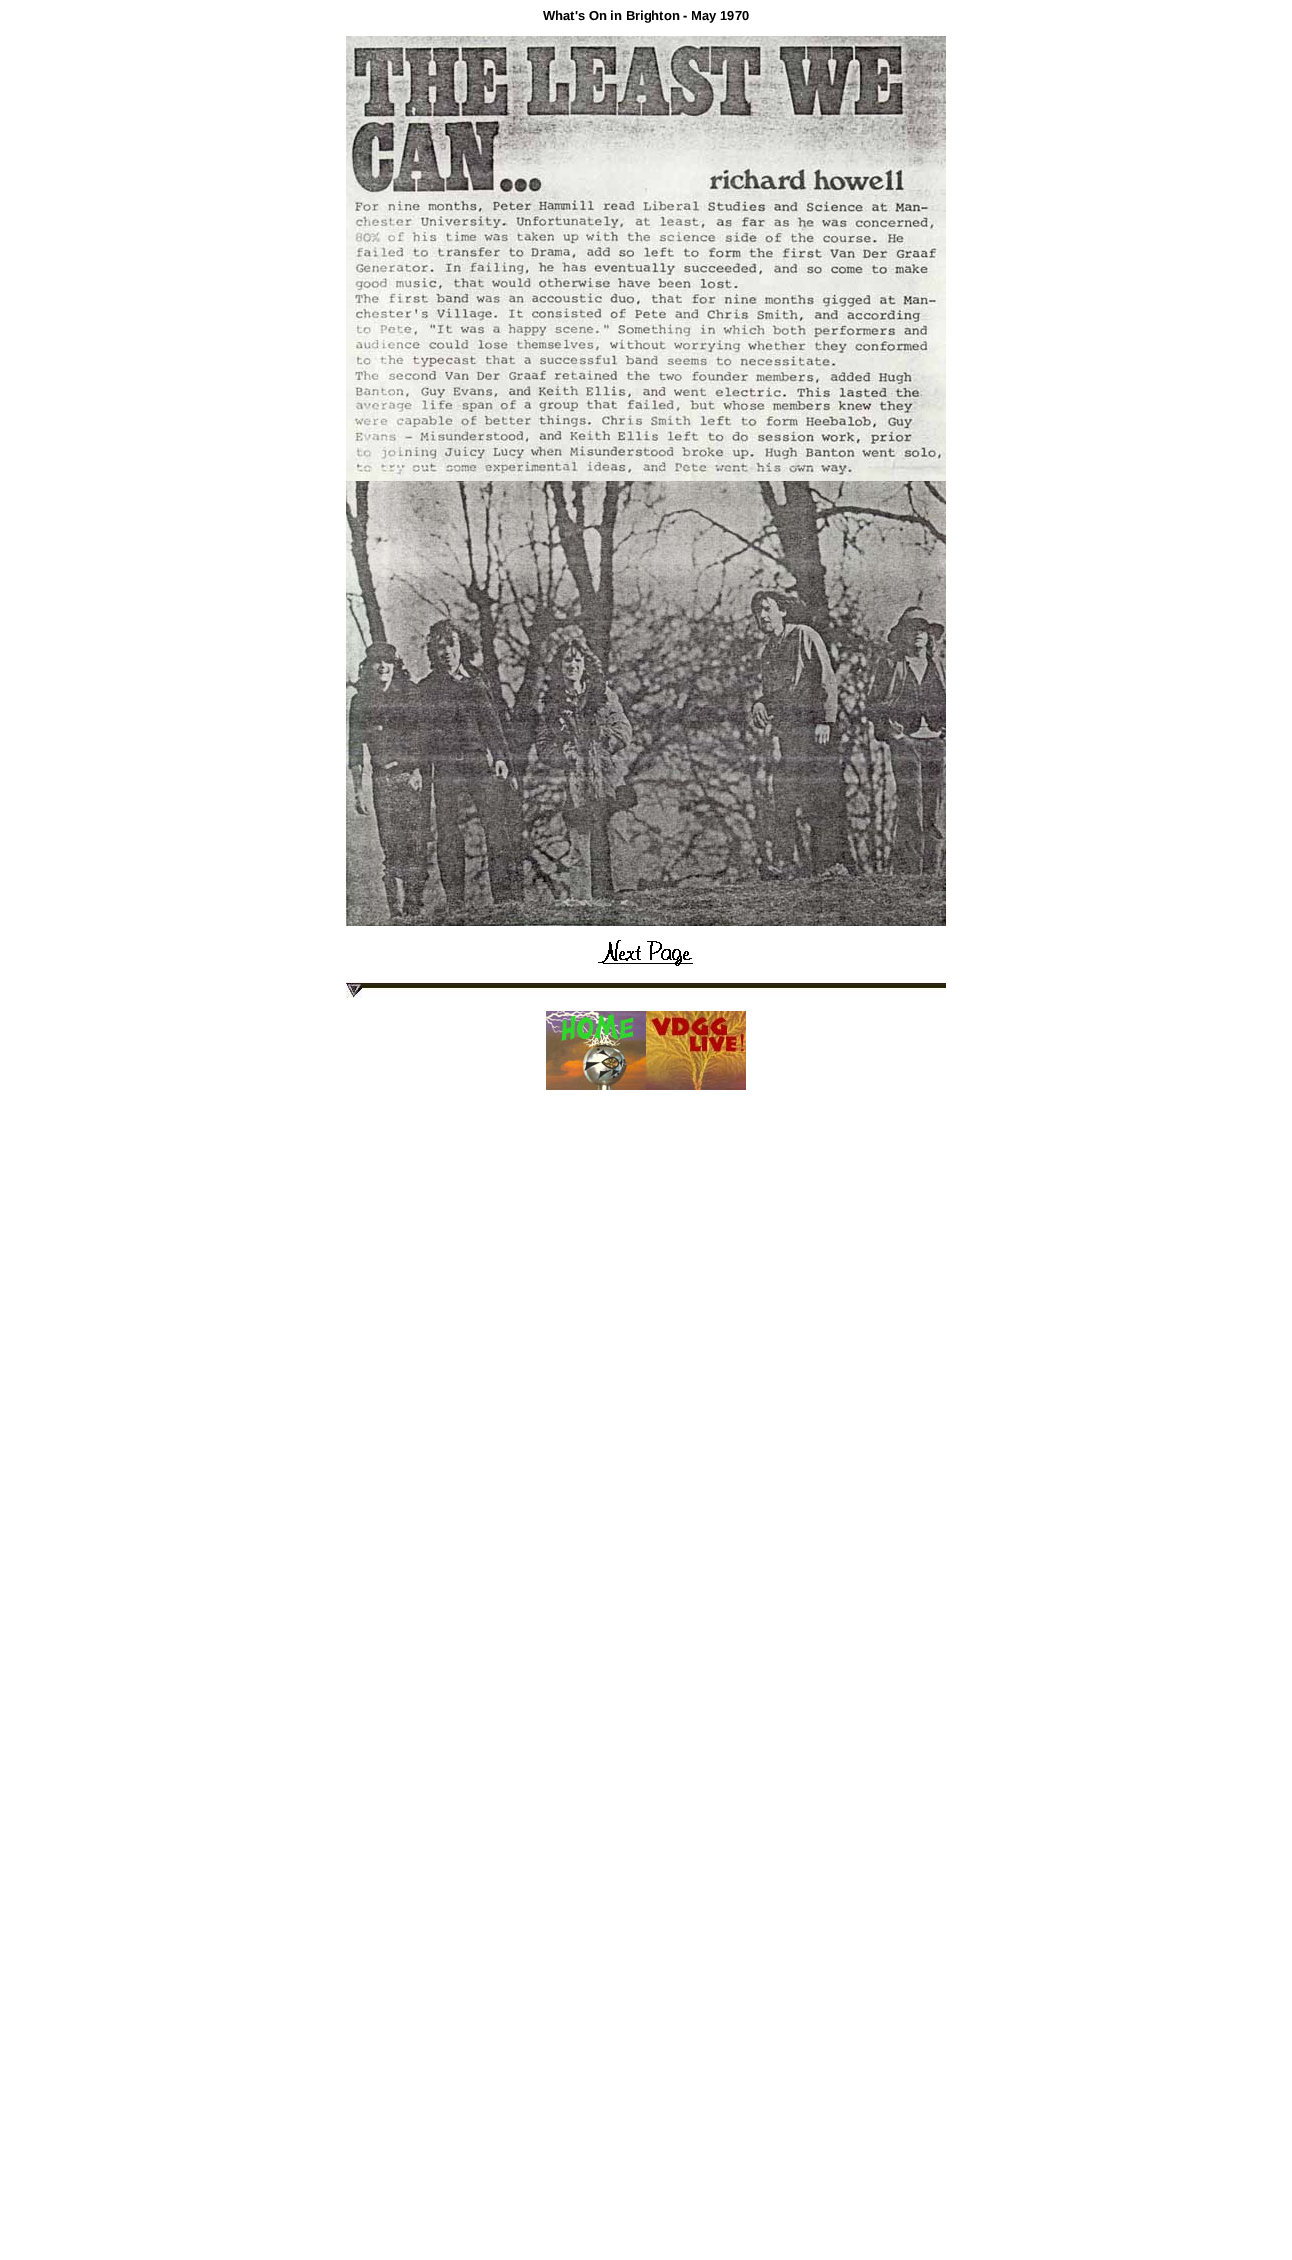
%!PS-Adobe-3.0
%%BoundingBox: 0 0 1292 2260
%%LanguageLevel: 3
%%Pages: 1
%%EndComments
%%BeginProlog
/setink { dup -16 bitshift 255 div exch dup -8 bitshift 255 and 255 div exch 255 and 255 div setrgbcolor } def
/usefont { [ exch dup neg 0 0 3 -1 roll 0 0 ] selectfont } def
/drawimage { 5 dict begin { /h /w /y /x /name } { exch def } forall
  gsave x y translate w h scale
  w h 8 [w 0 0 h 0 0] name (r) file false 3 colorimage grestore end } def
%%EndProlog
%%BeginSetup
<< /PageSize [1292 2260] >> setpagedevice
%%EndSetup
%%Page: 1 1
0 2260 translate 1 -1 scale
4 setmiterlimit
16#FFFFFF setink
0 0 1292 2260 rectfill
/LiberationSans-Bold 13 usefont
16#000000 setink
543 20 moveto (What's On in Brighton - May 1970) show
(img1.raw) 346 36 600 445 drawimage
(img2.raw) 346 481 600 445 drawimage
(img3.raw) 598 940 95 26 drawimage
(img4.raw) 346 982 600 16 drawimage
(img5.raw) 546 1011 100 79 drawimage
(img6.raw) 646 1011 100 79 drawimage
showpage
%%EOF
